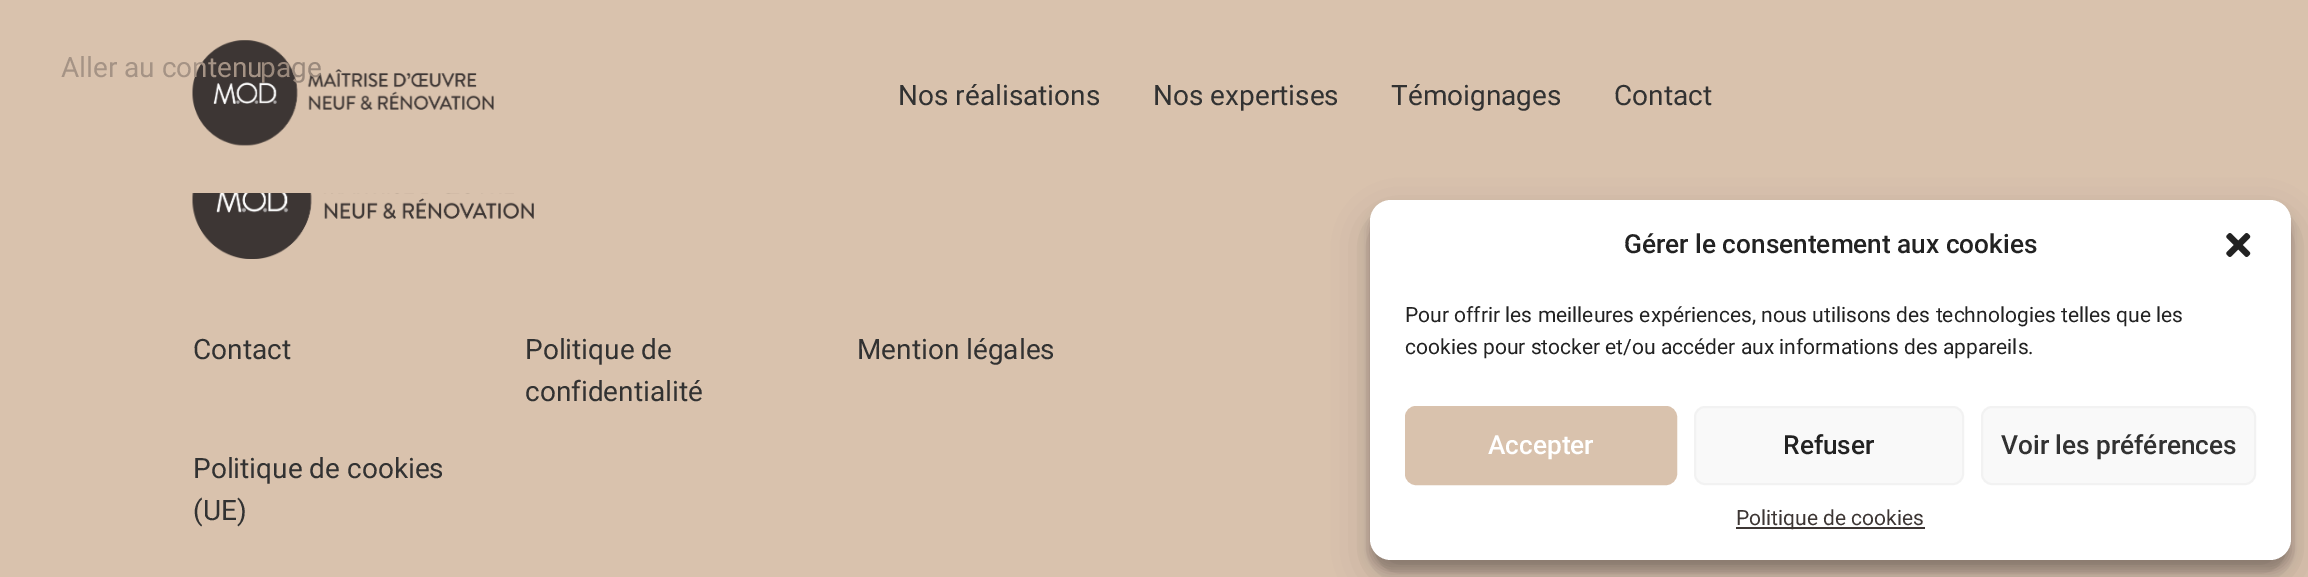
%!PS-Adobe-3.0
%%BoundingBox: 0 0 2308 577
%%LanguageLevel: 3
%%Pages: 1
%%EndComments
%%BeginProlog
/setink { dup -16 bitshift 255 div exch dup -8 bitshift 255 and 255 div exch 255 and 255 div setrgbcolor } def
/usefont { [ exch dup neg 0 0 3 -1 roll 0 0 ] selectfont } def
/setalpha { dup .setfillconstantalpha .setstrokeconstantalpha } def
/rrect { 5 dict begin { /r /h /w /y /x } { exch def } forall
  x r add y moveto x w add y 2 copy h add r arct x w add y h add x 1 index r arct
  x y h add x y r arct x y 2 copy exch w add exch r arct closepath end } def
/softshadow { 12 dict begin { /a /b /q /h /w /y /x } { exch def } forall gsave /was 0 def
  9 -2 -9 { dup b mul 4 div /e exch def 1 sub .425 mul 2.718 exch exp 1 add a .99 .min exch div /now exch def
    1 1 now sub 1 was sub div sub setalpha /was now def
    w h .min e 2 mul add 0 gt { x e sub y e sub w e 2 mul add h e 2 mul add
      q e add b .6 mul add w h .min 2 div e add .min 0 .max rrect fill } if } for grestore end } def
/drawimage { 5 dict begin { /h /w /y /x /name } { exch def } forall
  gsave x y translate w h scale
  w h 8 [w 0 0 h 0 0] name (r) file false 3 colorimage grestore end } def
%%EndProlog
%%BeginSetup
<< /PageSize [2308 577] /PageUsesTransparency true >> setpagedevice
%%EndSetup
%%Page: 1 1
0 .pushpdf14devicefilter
0 577 translate 1 -1 scale
4 setmiterlimit
16#D9C2AD setink
0 0 2308 577 rectfill
(img1.raw) 192 40 302 106 drawimage
/Roboto-Regular 28 usefont
16#A59385 setink
61 77 moveto (Aller au contenu) show
16#9A897C setink
260 77 moveto (page) show
16#323232 setink
[
    [(Nos réalisations) 898 105]
    [(Nos expertises) 1153 105]
    [(Témoignages) 1391 105]
    [(Contact) 1614 105]
] { aload pop moveto show } forall
(img2.raw) 192 193 342 66 drawimage
[
    [(Contact) 193 359]
    [(Politique de) 525 359]
    [(confidentialité) 525 401]
    [(Mention légales) 857 359]
    [(Politique de cookies) 193 478]
    [(\(UE\)) 193 520]
] { aload pop moveto show } forall
16#000000 setink
1370 210 921 361 21 5 0.23 softshadow
1370 217 921 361 21 17.5 0.19 softshadow
16#FFFFFF setink
1370 200 921 360 21 rrect fill
/Roboto-Medium 26.25 usefont
16#222222 setink
1624 253 moveto (Gérer le consentement aux cookies) show
(img3.raw) 2226 233 25 24 drawimage
/Roboto-Regular 21 usefont
1405 322 moveto (Pour offrir les meilleures expériences, nous utilisons des technologies telles que les) show
1405 354 moveto (cookies pour stocker et/ou accéder aux informations des appareils.) show
16#D9C2AD setink
1406 407 270 77 10 rrect gsave fill grestore
2 setlinewidth
stroke
/Roboto-Medium 26.25 usefont
16#FFFFFF setink
1488 454 moveto (Accepter) show
16#F9F9F9 setink
1695 407 268 77 10 rrect gsave fill grestore
16#F2F2F2 setink
stroke
16#222222 setink
1783 454 moveto (Refuser) show
16#F9F9F9 setink
1982 407 273 77 10 rrect gsave fill grestore
16#F2F2F2 setink
stroke
16#323232 setink
2001 454 moveto (Voir les préférences) show
16#3D3634 setink
1736 527 189 2 rectfill
/Roboto-Regular 21 usefont
1736 525 moveto (Politique de cookies) show
.poppdf14devicefilter showpage
%%EOF
